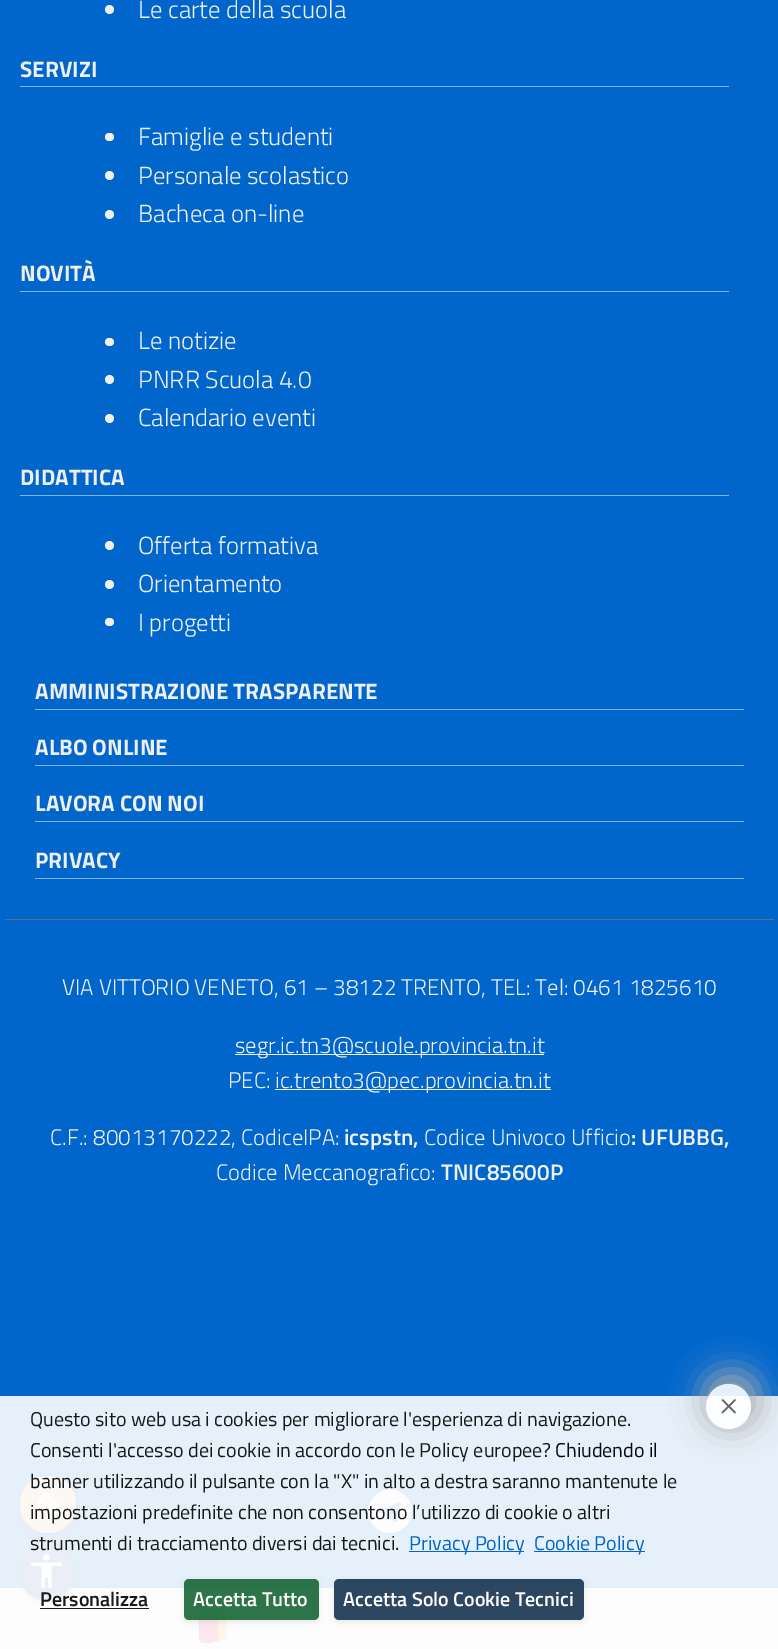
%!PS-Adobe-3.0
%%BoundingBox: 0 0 778 1649
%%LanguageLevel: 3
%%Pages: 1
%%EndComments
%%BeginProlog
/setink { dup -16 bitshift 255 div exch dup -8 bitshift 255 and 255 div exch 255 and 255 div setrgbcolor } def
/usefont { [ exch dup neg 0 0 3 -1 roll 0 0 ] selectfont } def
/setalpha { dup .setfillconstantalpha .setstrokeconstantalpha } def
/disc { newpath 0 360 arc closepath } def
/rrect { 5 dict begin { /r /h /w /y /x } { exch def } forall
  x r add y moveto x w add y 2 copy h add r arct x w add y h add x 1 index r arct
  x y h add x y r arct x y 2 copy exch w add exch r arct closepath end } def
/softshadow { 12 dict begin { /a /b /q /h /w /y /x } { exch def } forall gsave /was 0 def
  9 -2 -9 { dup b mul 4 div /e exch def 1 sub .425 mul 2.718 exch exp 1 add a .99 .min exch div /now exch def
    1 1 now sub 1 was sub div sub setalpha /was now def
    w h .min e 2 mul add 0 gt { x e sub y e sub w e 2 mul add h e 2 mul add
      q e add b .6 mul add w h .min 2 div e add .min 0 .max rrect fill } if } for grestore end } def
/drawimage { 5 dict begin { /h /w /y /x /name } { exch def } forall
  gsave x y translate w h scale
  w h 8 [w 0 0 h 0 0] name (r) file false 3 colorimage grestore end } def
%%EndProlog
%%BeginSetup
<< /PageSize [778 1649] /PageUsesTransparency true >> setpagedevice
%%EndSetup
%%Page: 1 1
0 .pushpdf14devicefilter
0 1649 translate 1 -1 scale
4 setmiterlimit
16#0066CC setink
0 0 778 1649 rectfill
16#EFEFEF setink
109.5 9.5 4.5 disc fill
/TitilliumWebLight-Light 24.75 usefont
138 18 moveto (Le carte della scuola) show
16#80B3E6 setink
20 86 709 1 rectfill
/TitilliumWeb-Bold 22.5 usefont
16#EFEFEF setink
20 77 moveto (SERVIZI) show
105 133 9 8 4 rrect fill
/TitilliumWebLight-Light 24.75 usefont
138 145 moveto (Famiglie e studenti) show
109.5 175.5 4.5 disc fill
138 184 moveto (Personale scolastico) show
109.5 214.5 4.5 disc fill
138 222 moveto (Bacheca on-line) show
16#80B3E6 setink
20 291 709 1 rectfill
/TitilliumWeb-Bold 22.5 usefont
16#EFEFEF setink
20 281 moveto (NOVITÀ) show
105 338 9 8 4 rrect fill
/TitilliumWebLight-Light 24.75 usefont
138 349 moveto (Le notizie) show
109.5 379.5 4.5 disc fill
138 388 moveto (PNRR Scuola 4.0) show
109.5 418.5 4.5 disc fill
138 426 moveto (Calendario eventi) show
16#80B3E6 setink
20 495 709 1 rectfill
/TitilliumWeb-Bold 22.5 usefont
16#EFEFEF setink
20 485 moveto (DIDATTICA) show
109.5 545.5 4.5 disc fill
/TitilliumWebLight-Light 24.75 usefont
138 554 moveto (Offerta formativa) show
109.5 584.5 4.5 disc fill
138 592 moveto (Orientamento) show
105 618 9 8 4 rrect fill
138 631 moveto (I progetti) show
16#80B3E6 setink
35 709 709 1 rectfill
/TitilliumWeb-Bold 22.5 usefont
16#EFEFEF setink
35 699 moveto (AMMINISTRAZIONE TRASPARENTE) show
16#80B3E6 setink
35 765 709 1 rectfill
16#EFEFEF setink
35 755 moveto (ALBO ONLINE) show
16#80B3E6 setink
35 821 709 1 rectfill
16#EFEFEF setink
35 811 moveto (LAVORA CON NOI) show
16#80B3E6 setink
35 878 709 1 rectfill
16#EFEFEF setink
35 868 moveto (PRIVACY) show
16#5D7083 setink
5 919 769 1 rectfill
5 1458 769 1 rectfill
/TitilliumWebLight-Light 22.5 usefont
16#EFEFEF setink
62 995 moveto (VIA VITTORIO VENETO, 61 – 38122 TRENTO, TEL: Tel: 0461 1825610) show
235 1054 309 1 rectfill
235 1053 moveto (segr.ic.tn3@scuole.provincia.tn.it) show
228 1088 moveto (PEC:) show
275 1089 276 1 rectfill
275 1088 moveto (ic.trento3@pec.provincia.tn.it) show
50 1145 moveto (C.F.: 80013170222, CodiceIPA:) show
/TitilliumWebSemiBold-SemiBold 22.5 usefont
344 1145 moveto (icspstn,) show
/TitilliumWebLight-Light 22.5 usefont
424 1145 moveto (Codice Univoco Ufficio) show
/TitilliumWebSemiBold-SemiBold 22.5 usefont
631 1145 moveto (: UFUBBG,) show
/TitilliumWebLight-Light 22.5 usefont
216 1180 moveto (Codice Meccanografico:) show
/TitilliumWebSemiBold-SemiBold 22.5 usefont
441 1180 moveto (TNIC85600P) show
(img1.raw) 368 1489 44 44 drawimage
0 1588 778 61 rectfill
(img2.raw) 198 1607 29 37 drawimage
16#000000 setink
20 1488 56 56 28 11 0.15 softshadow
16#DEB887 setink
20 1476 56 57 28 rrect fill
(img3.raw) 38 1493 22 22 drawimage
16#000000 setink
21 1549 53 52 26 3 0.5 softshadow
16#4054B2 setink
20 1548 53 52 26 rrect fill
(img4.raw) 31 1554 31 34 drawimage
0.9 setalpha
16#FFFFFF setink
0 1396 778 253 rectfill
/TitilliumWeb-Regular 20 usefont
1 setalpha
16#171819 setink
30 1426 moveto (Questo sito web usa i cookies per migliorare l'esperienza di navigazione.) show
30 1457 moveto (Consenti l'accesso dei cookie in accordo con le Policy europee?) show
16#000A14 setink
555 1457 moveto (Chiudendo il) show
16#171819 setink
[
    [(banner utilizzando il pulsante con la "X" in alto a destra saranno mantenute le) 30 1488]
    [(impostazioni predefinite che non consentono l’utilizzo di cookie o altri) 30 1519]
    [(strumenti di tracciamento diversi dai tecnici.) 30 1550]
] { aload pop moveto show } forall
16#0066CC setink
409 1551 115 1 rectfill
409 1550 moveto (Privacy Policy) show
534 1551 111 1 rectfill
534 1550 moveto (Cookie Policy) show
/TitilliumWebSemiBold-SemiBold 20 usefont
16#171819 setink
40 1606 moveto (Personalizza) show
16#181818 setink
40 1608 109 1 rectfill
gsave
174 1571 moveto 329 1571 lineto 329 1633 lineto 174 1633 lineto closepath 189 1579 moveto 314 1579 lineto 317 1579 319 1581 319 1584 curveto 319 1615 lineto 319 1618 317 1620 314 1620 curveto 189 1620 lineto 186 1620 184 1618 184 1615 curveto 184 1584 lineto 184 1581 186 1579 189 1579 curveto closepath eoclip newpath
16#000000 setink
184 1581 135 42 5 3 0.07 softshadow
grestore
0.9 setalpha
16#166534 setink
184 1579 135 41 5 rrect fill
1 setalpha
16#FDFDFD setink
193 1606 moveto (Accetta Tutto) show
gsave
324 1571 moveto 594 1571 lineto 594 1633 lineto 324 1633 lineto closepath 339 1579 moveto 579 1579 lineto 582 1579 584 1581 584 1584 curveto 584 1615 lineto 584 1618 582 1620 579 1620 curveto 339 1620 lineto 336 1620 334 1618 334 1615 curveto 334 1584 lineto 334 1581 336 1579 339 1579 curveto closepath eoclip newpath
16#000000 setink
334 1581 250 42 5 3 0.07 softshadow
grestore
0.9 setalpha
16#17334F setink
334 1579 250 41 5 rrect fill
1 setalpha
16#FDFDFD setink
343 1606 moveto (Accetta Solo Cookie Tecnici) show
gsave
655 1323 moveto 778 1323 lineto 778 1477 lineto 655 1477 lineto closepath 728.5 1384 moveto 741 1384 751 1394 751 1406.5 curveto 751 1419 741 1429 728.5 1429 curveto 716 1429 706 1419 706 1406.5 curveto 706 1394 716 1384 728.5 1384 curveto closepath eoclip newpath
16#ACACAC setink
703 1371 57 58 28.5 15.5 0.9 softshadow
grestore
0.9 setalpha
16#FFFFFF setink
728.5 1406.5 22.5 disc fill
1 setalpha
16#656565 setink
1.6 setlinewidth
1 setlinecap
1 setlinejoin
722.5 1412.5 moveto 735 1400 lineto 722.5 1400 moveto 735 1412.5 lineto stroke
.poppdf14devicefilter showpage
%%EOF
